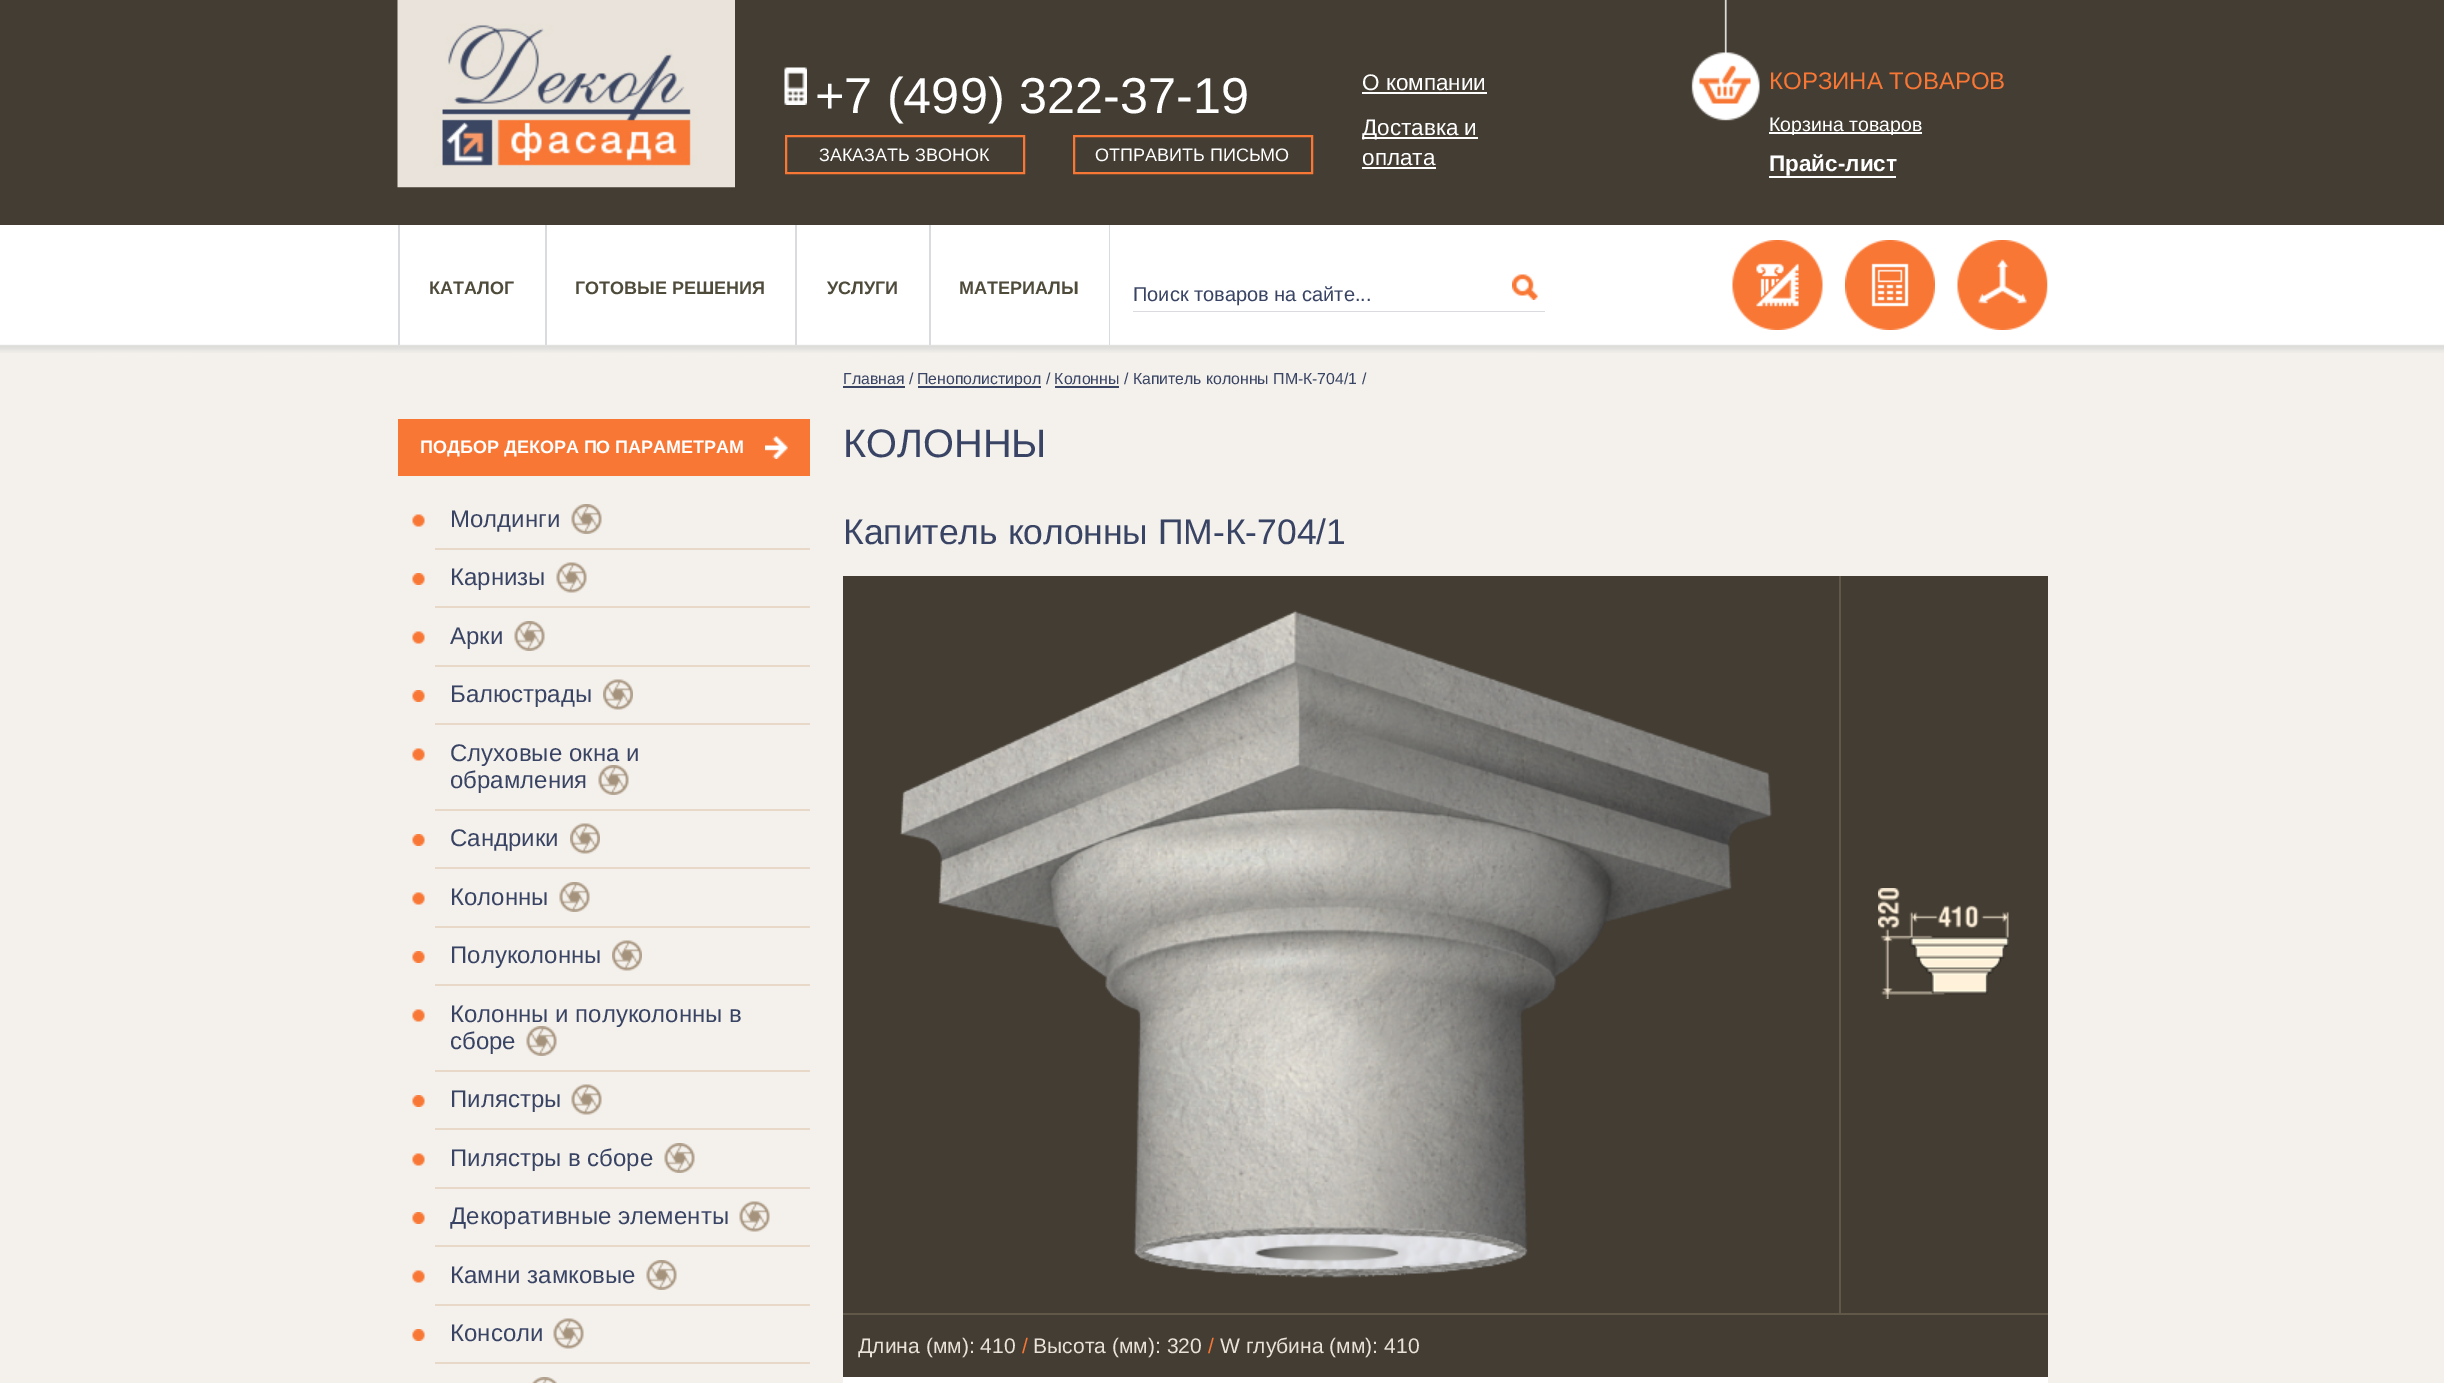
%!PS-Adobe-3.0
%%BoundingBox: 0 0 2444 1383
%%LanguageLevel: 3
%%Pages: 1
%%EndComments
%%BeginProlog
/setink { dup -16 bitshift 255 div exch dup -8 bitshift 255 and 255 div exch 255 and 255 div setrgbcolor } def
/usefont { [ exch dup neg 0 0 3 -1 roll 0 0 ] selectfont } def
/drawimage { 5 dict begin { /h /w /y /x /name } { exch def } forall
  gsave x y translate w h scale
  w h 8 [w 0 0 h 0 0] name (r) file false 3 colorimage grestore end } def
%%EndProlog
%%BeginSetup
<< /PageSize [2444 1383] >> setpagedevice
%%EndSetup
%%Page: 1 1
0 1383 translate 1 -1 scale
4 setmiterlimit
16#F4F1EC setink
0 0 2444 1383 rectfill
16#443D33 setink
0 0 2444 225 rectfill
(img1.raw) 397 0 338 188 drawimage
(img2.raw) 784 67 23 38 drawimage
/LiberationSans-Regular 50.5 usefont
16#FFFFFF setink
815 113 moveto (+7 \(499\) 322-37-19) show
16#F87735 setink
2 setlinewidth
786 136 238 37 rectstroke
/LiberationSans-Regular 18 usefont
16#FFFFFF setink
819 161 moveto (ЗАКАЗАТЬ ЗВОНОК) show
16#F87735 setink
1074 136 238 37 rectstroke
16#FFFFFF setink
1095 161 moveto (ОТПРАВИТЬ ПИСЬМО) show
/LiberationSans-Regular 22.5 usefont
1362 90 moveto (О компании) show
1362 92 125 2 rectfill
1362 137 116 2 rectfill
1362 135 moveto (Доставка и) show
1362 165 moveto (оплата) show
1362 167 74 2 rectfill
(img3.raw) 1691 0 69 121 drawimage
/LiberationSans-Regular 24 usefont
16#F87735 setink
1769 89 moveto (КОРЗИНА ТОВАРОВ) show
16#FFFFFF setink
1769 132 153 2 rectfill
/LiberationSans-Regular 19.5 usefont
1769 131 moveto (Корзина товаров) show
/LiberationSans-Bold 22.5 usefont
1769 171 moveto (Прайс-лист) show
1769 176 127 2 rectfill
(img4.raw) 0 225 2444 128 drawimage
16#D9DBDF setink
398 225 2 120 rectfill
545 225 2 120 rectfill
/LiberationSans-Bold 18 usefont
16#4F4B3B setink
429 294 moveto (КАТАЛОГ) show
16#D9DBDF setink
795 225 2 120 rectfill
16#4F4B3B setink
575 294 moveto (ГОТОВЫЕ РЕШЕНИЯ) show
16#D9DBDF setink
929 225 2 120 rectfill
16#4F4B3B setink
827 294 moveto (УСЛУГИ) show
16#D9DBDF setink
1109 225 1 120 rectfill
16#4F4B3B setink
959 294 moveto (МАТЕРИАЛЫ) show
16#D9DBDF setink
1133 311 412 1 rectfill
/LiberationSans-Regular 20 usefont
16#394464 setink
1133 301 moveto (Поиск товаров на сайте...) show
(img5.raw) 1512 274 26 26 drawimage
(img6.raw) 1732 240 91 90 drawimage
(img7.raw) 1845 240 90 90 drawimage
(img8.raw) 1957 240 91 90 drawimage
16#F87735 setink
398 419 412 57 rectfill
(img9.raw) 765 436 23 23 drawimage
/LiberationSans-Bold 18 usefont
16#FFFFFF setink
420 453 moveto (ПОДБОР ДЕКОРА ПО ПАРАМЕТРАМ) show
16#E7D8C7 setink
435 548 375 2 rectfill
(img10.raw) 412 514 13 13 drawimage
/LiberationSans-Regular 24 usefont
16#394464 setink
450 527 moveto (Молдинги) show
(img11.raw) 571 504 31 30 drawimage
16#E7D8C7 setink
435 606 375 2 rectfill
(img12.raw) 412 573 13 12 drawimage
16#394464 setink
450 585 moveto (Карнизы) show
(img13.raw) 556 562 31 31 drawimage
16#E7D8C7 setink
435 665 375 2 rectfill
(img10.raw) 412 631 13 13 drawimage
16#394464 setink
450 644 moveto (Арки) show
(img14.raw) 514 621 31 30 drawimage
16#E7D8C7 setink
435 723 375 2 rectfill
(img12.raw) 412 690 13 12 drawimage
16#394464 setink
450 702 moveto (Балюстрады) show
(img15.raw) 603 679 30 31 drawimage
16#E7D8C7 setink
435 809 375 2 rectfill
(img10.raw) 412 748 13 13 drawimage
16#394464 setink
450 761 moveto (Слуховые окна и) show
450 788 moveto (обрамления) show
(img11.raw) 598 765 31 30 drawimage
16#E7D8C7 setink
435 867 375 2 rectfill
(img12.raw) 412 834 13 12 drawimage
16#394464 setink
450 846 moveto (Сандрики) show
(img15.raw) 570 823 30 31 drawimage
16#E7D8C7 setink
435 926 375 2 rectfill
(img10.raw) 412 892 13 13 drawimage
16#394464 setink
450 905 moveto (Колонны) show
(img11.raw) 559 882 31 30 drawimage
16#E7D8C7 setink
435 984 375 2 rectfill
(img12.raw) 412 951 13 12 drawimage
16#394464 setink
450 963 moveto (Полуколонны) show
(img16.raw) 612 940 30 31 drawimage
16#E7D8C7 setink
435 1070 375 2 rectfill
(img10.raw) 412 1009 13 13 drawimage
16#394464 setink
450 1022 moveto (Колонны и полуколонны в) show
450 1049 moveto (сборе) show
(img11.raw) 526 1026 31 30 drawimage
16#E7D8C7 setink
435 1128 375 2 rectfill
(img12.raw) 412 1095 13 12 drawimage
16#394464 setink
450 1107 moveto (Пилястры) show
(img13.raw) 571 1084 31 31 drawimage
16#E7D8C7 setink
435 1187 375 2 rectfill
(img10.raw) 412 1153 13 13 drawimage
16#394464 setink
450 1166 moveto (Пилястры в сборе) show
(img11.raw) 664 1143 31 30 drawimage
16#E7D8C7 setink
435 1245 375 2 rectfill
(img12.raw) 412 1212 13 12 drawimage
16#394464 setink
450 1224 moveto (Декоративные элементы) show
(img13.raw) 739 1201 31 31 drawimage
16#E7D8C7 setink
435 1304 375 2 rectfill
(img10.raw) 412 1270 13 13 drawimage
16#394464 setink
450 1283 moveto (Камни замковые) show
(img11.raw) 646 1260 31 30 drawimage
16#E7D8C7 setink
435 1362 375 2 rectfill
(img12.raw) 412 1329 13 12 drawimage
16#394464 setink
450 1341 moveto (Консоли) show
(img13.raw) 553 1318 31 31 drawimage
(img17.raw) 532 1377 25 6 drawimage
/LiberationSans-Regular 15.85 usefont
843 384 moveto (Главная /) show
843 386 62 2 rectfill
918 386 123 2 rectfill
917 384 moveto (Пенополистирол / Колонны / Капитель колонны ПМ-К-704/1 /) show
1055 386 64 2 rectfill
/LiberationSans-Regular 39.75 usefont
843 457 moveto (КОЛОННЫ) show
/LiberationSans-Regular 35.5 usefont
843 544 moveto (Капитель колонны ПМ-К-704/1) show
16#443D33 setink
843 576 996 737 rectfill
(img18.raw) 900 610 872 668 drawimage
1841 576 207 737 rectfill
16#62584A setink
1839 576 2 737 rectfill
(img19.raw) 1878 888 131 111 drawimage
16#443D33 setink
843 1315 1205 62 rectfill
16#62584A setink
843 1313 1205 2 rectfill
/LiberationSans-Regular 21.1 usefont
16#E9E3DA setink
858 1353 moveto (Длина \(мм\): 410) show
16#F87735 setink
1022 1353 moveto (/) show
16#E9E3DA setink
1033 1353 moveto (Высота \(мм\): 320) show
16#F87735 setink
1208 1353 moveto (/) show
16#E9E3DA setink
1220 1353 moveto (W глубина \(мм\): 410) show
16#FFFFFF setink
843 1377 1205 6 rectfill
showpage
%%EOF
